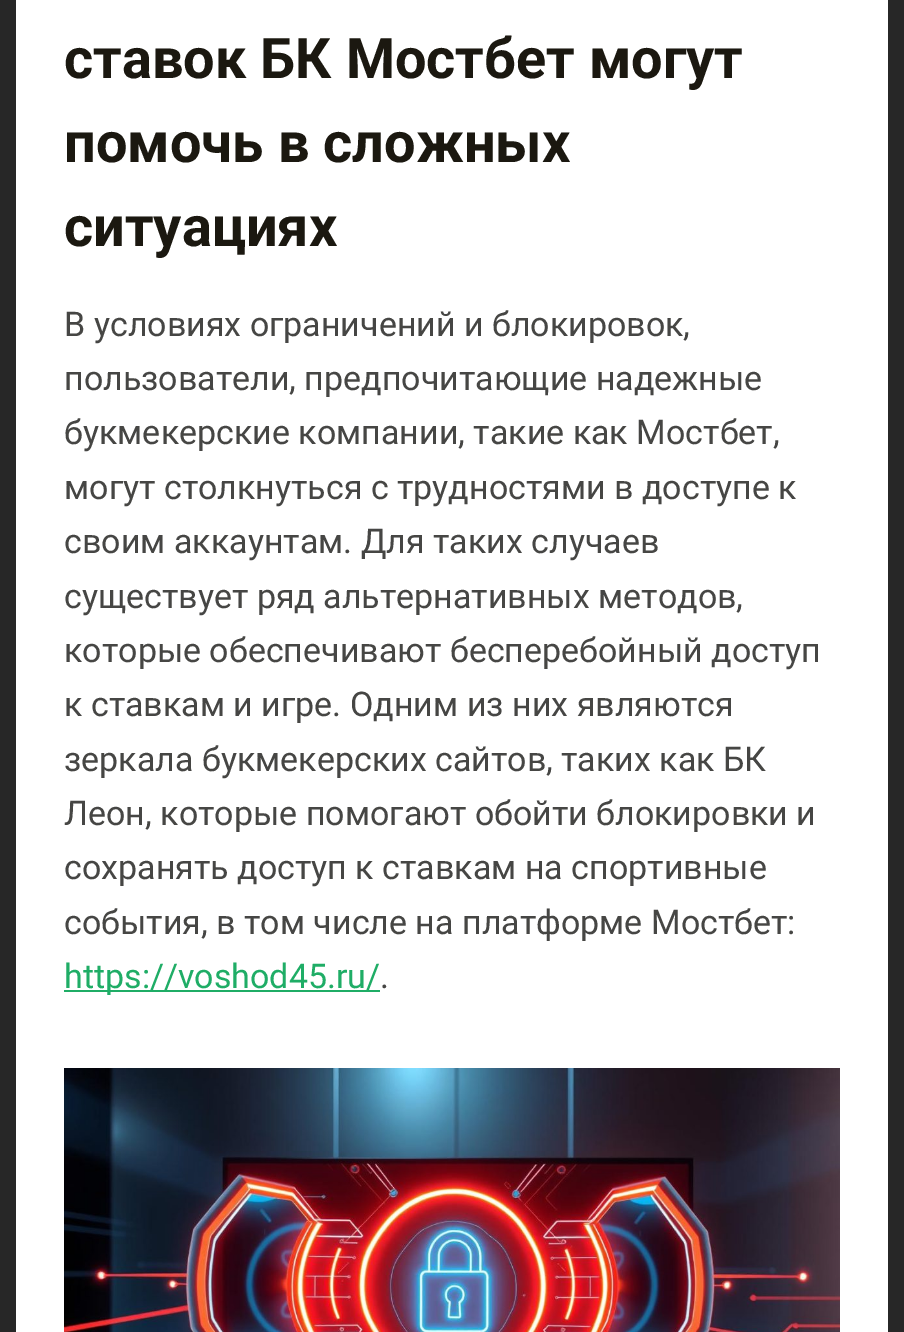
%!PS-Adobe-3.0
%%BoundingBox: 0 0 904 1332
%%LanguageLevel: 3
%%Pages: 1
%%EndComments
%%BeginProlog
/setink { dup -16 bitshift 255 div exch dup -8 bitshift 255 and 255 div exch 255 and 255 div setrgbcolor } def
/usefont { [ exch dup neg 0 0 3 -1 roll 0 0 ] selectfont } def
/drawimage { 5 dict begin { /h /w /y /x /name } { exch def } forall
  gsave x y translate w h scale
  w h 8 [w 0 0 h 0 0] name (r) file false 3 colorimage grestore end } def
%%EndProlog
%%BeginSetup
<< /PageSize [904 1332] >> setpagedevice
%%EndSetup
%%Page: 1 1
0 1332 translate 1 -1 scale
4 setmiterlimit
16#272727 setink
0 0 904 1332 rectfill
16#FFFFFF setink
16 0 872 1332 rectfill
/Roboto-Bold 56 usefont
16#1B1810 setink
[
    [(ставок БК Мостбет могут) 64 78]
    [(помочь в сложных) 64 162]
    [(ситуациях) 64 246]
] { aload pop moveto show } forall
/Roboto-Regular 34 usefont
16#464644 setink
[
    [(В условиях ограничений и блокировок,) 64 336]
    [(пользователи, предпочитающие надежные) 64 390]
    [(букмекерские компании, такие как Мостбет,) 64 444]
    [(могут столкнуться с трудностями в доступе к) 64 499]
    [(своим аккаунтам. Для таких случаев) 64 553]
    [(существует ряд альтернативных методов,) 64 608]
    [(которые обеспечивают бесперебойный доступ) 64 662]
    [(к ставкам и игре. Одним из них являются) 64 716]
    [(зеркала букмекерских сайтов, таких как БК) 64 771]
    [(Леон, которые помогают обойти блокировки и) 64 825]
    [(сохранять доступ к ставкам на спортивные) 64 879]
    [(события, в том числе на платформе Мостбет:) 64 934]
] { aload pop moveto show } forall
16#1FAD66 setink
64 990 316 2 rectfill
64 988 moveto (https://voshod45.ru/) show
16#464644 setink
380 988 moveto (.) show
(img1.raw) 64 1068 776 264 drawimage
showpage
%%EOF
